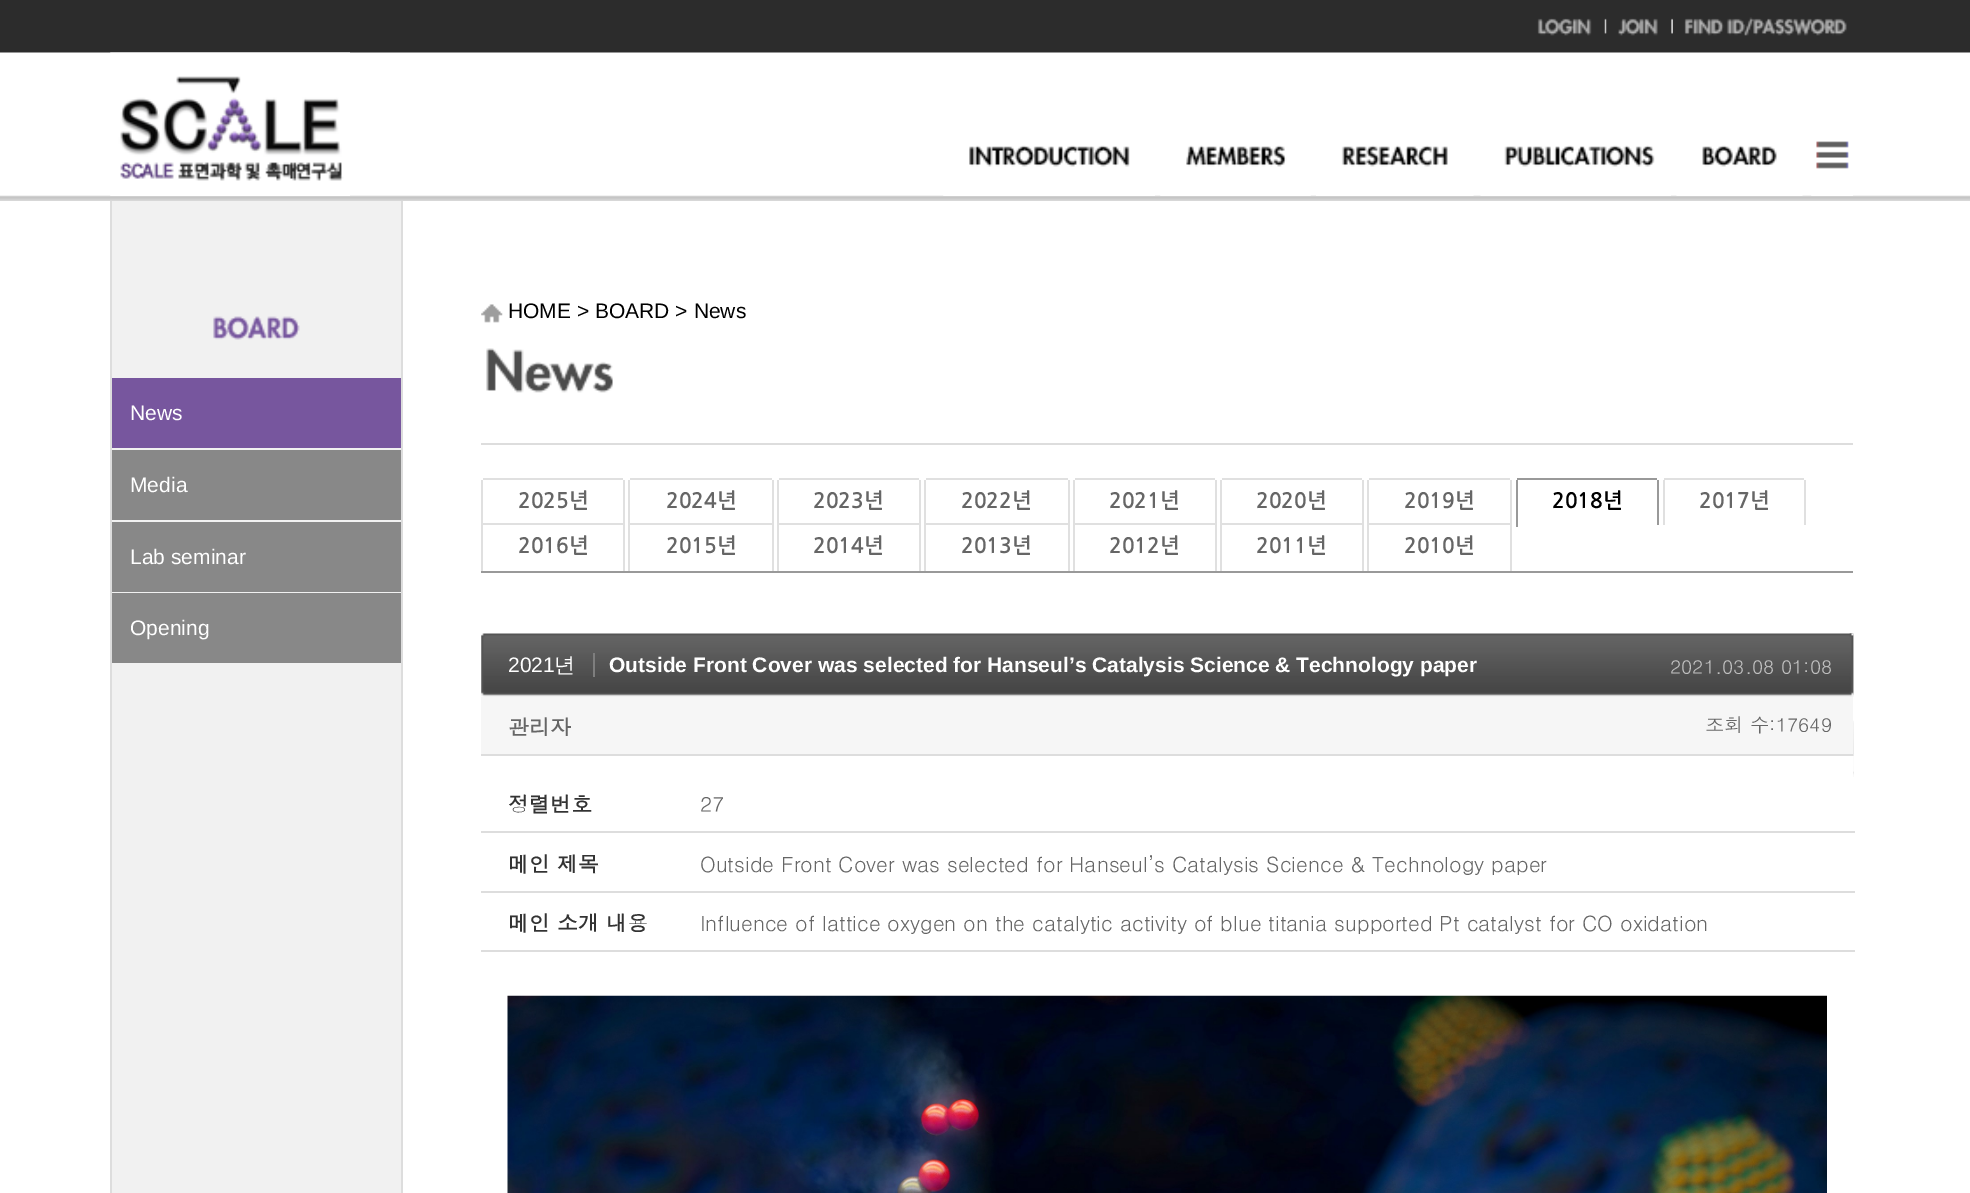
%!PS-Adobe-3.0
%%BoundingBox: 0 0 1970 1193
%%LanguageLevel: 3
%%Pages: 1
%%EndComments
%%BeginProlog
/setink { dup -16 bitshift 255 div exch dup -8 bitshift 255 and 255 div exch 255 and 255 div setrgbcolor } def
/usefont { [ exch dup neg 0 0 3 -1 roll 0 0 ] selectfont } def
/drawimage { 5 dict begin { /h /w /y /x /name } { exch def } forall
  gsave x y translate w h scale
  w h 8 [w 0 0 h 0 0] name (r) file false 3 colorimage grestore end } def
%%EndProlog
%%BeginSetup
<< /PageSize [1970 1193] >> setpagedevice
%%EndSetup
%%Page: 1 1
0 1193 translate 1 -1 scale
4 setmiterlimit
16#FFFFFF setink
0 0 1970 1193 rectfill
(img1.raw) 0 0 1970 201 drawimage
(img2.raw) 1537 18 55 18 drawimage
(img3.raw) 1604 18 3 16 drawimage
(img4.raw) 1606 18 52 18 drawimage
(img5.raw) 1671 18 2 16 drawimage
(img6.raw) 1684 17 163 19 drawimage
(img7.raw) 110 52 240 144 drawimage
(img8.raw) 943 145 212 51 drawimage
(img9.raw) 1160 145 151 51 drawimage
(img10.raw) 1316 145 158 51 drawimage
(img11.raw) 1480 145 191 51 drawimage
(img12.raw) 1676 145 127 51 drawimage
(img13.raw) 1811 141 42 55 drawimage
16#F1F1F1 setink
112 201 289 992 rectfill
16#DDDDDD setink
110 201 2 992 rectfill
(img14.raw) 213 316 87 24 drawimage
16#77569E setink
112 378 289 70 rectfill
/LiberationSans-Regular 21 usefont
16#FFFFFF setink
130 420 moveto (News) show
16#888888 setink
112 450 289 70 rectfill
16#FFFFFF setink
130 492 moveto (Media) show
16#888888 setink
112 522 289 70 rectfill
16#FFFFFF setink
130 564 moveto (Lab seminar) show
16#888888 setink
112 593 289 70 rectfill
16#FFFFFF setink
130 635 moveto (Opening) show
16#DDDDDD setink
401 201 2 992 rectfill
481 443 1372 2 rectfill
(img15.raw) 481 304 22 19 drawimage
16#000000 setink
508 318 moveto (HOME > BOARD > News) show
(img16.raw) 486 348 127 45 drawimage
[
    [481 571 1372 2 16#999999]
    [623 480 2 91 16#E0E0E0]
    [481 480 2 91 16#E0E0E0]
    [483 478 140 2 16#E0E0E0]
] { aload pop setink rectfill } forall
/NanumGothic-Bold 21 usefont
16#666666 setink
518 508 moveto (2025년) show
[
    [772 480 2 91 16#E0E0E0]
    [628 480 2 91 16#E0E0E0]
    [630 478 142 2 16#E0E0E0]
] { aload pop setink rectfill } forall
16#666666 setink
666 508 moveto (2024년) show
[
    [919 480 2 91 16#E0E0E0]
    [777 480 2 91 16#E0E0E0]
    [779 478 140 2 16#E0E0E0]
] { aload pop setink rectfill } forall
16#666666 setink
813 508 moveto (2023년) show
[
    [1068 480 2 91 16#E0E0E0]
    [924 480 2 91 16#E0E0E0]
    [926 478 142 2 16#E0E0E0]
] { aload pop setink rectfill } forall
16#666666 setink
961 508 moveto (2022년) show
[
    [1215 480 2 91 16#E0E0E0]
    [1073 480 2 91 16#E0E0E0]
    [1075 478 140 2 16#E0E0E0]
] { aload pop setink rectfill } forall
16#666666 setink
1109 508 moveto (2021년) show
[
    [1362 480 2 91 16#E0E0E0]
    [1220 480 2 91 16#E0E0E0]
    [1222 478 140 2 16#E0E0E0]
] { aload pop setink rectfill } forall
16#666666 setink
1256 508 moveto (2020년) show
[
    [1510 480 2 91 16#E0E0E0]
    [1367 480 2 91 16#E0E0E0]
    [1369 478 141 2 16#E0E0E0]
] { aload pop setink rectfill } forall
16#666666 setink
1404 508 moveto (2019년) show
[
    [1657 480 2 47 16#999999]
    [1657 525 2 2 16#FFFFFF]
    [1516 480 2 47 16#999999]
    [1517 478 140 2 16#999999]
] { aload pop setink rectfill } forall
16#000000 setink
1552 508 moveto (2018년) show
[
    [1804 480 2 45 16#E0E0E0]
    [1663 480 2 45 16#E0E0E0]
    [1664 478 140 2 16#E0E0E0]
] { aload pop setink rectfill } forall
16#666666 setink
1699 508 moveto (2017년) show
16#E0E0E0 setink
483 523 140 2 rectfill
16#666666 setink
518 553 moveto (2016년) show
16#E0E0E0 setink
630 523 142 2 rectfill
16#666666 setink
666 553 moveto (2015년) show
16#E0E0E0 setink
779 523 140 2 rectfill
16#666666 setink
813 553 moveto (2014년) show
16#E0E0E0 setink
926 523 142 2 rectfill
16#666666 setink
961 553 moveto (2013년) show
16#E0E0E0 setink
1075 523 140 2 rectfill
16#666666 setink
1109 553 moveto (2012년) show
16#E0E0E0 setink
1222 523 140 2 rectfill
16#666666 setink
1256 553 moveto (2011년) show
16#E0E0E0 setink
1369 523 141 2 rectfill
16#666666 setink
1404 553 moveto (2010년) show
(img17.raw) 481 633 1373 144 drawimage
(img18.raw) 1849 633 5 123 drawimage
/LiberationSans-Regular 21 usefont
16#FFFFFF setink
508 672 moveto (2021) show
/WenQuanYiZenHei-Medium 21 usefont
554 672 moveto (년) show
16#7E7E7E setink
593 653 2 24 rectfill
/LiberationSans-Bold 21 usefont
16#FFFFFF setink
609 672 moveto (Outside Front Cover was selected for Hanseul’s Catalysis Science & Technology paper) show
/Dotum-Regular 19.25 usefont
16#BFBFBF setink
1670 674 moveto (2021.03.08 01:08) show
16#F6F6F6 setink
481 697 1372 57 rectfill
16#DDDDDD setink
481 754 1372 2 rectfill
/Dotum-Bold 21 usefont
16#666666 setink
508 735 moveto (관리자) show
/Dotum-Regular 19.25 usefont
1705 732 moveto (조회 수:17649) show
16#FFFFFF setink
481 756 1372 21 rectfill
/Dotum-Bold 21 usefont
16#333333 setink
508 812 moveto (정렬번호) show
16#DDDDDD setink
481 831 1374 2 rectfill
/Dotum-Regular 21 usefont
16#666666 setink
700 812 moveto (27) show
/Dotum-Bold 21 usefont
16#333333 setink
508 872 moveto (메인 제목) show
16#DDDDDD setink
481 891 1374 2 rectfill
/Dotum-Regular 21 usefont
16#666666 setink
700 872 moveto (Outside Front Cover was selected for Hanseul’s Catalysis Science & Technology paper) show
/Dotum-Bold 21 usefont
16#333333 setink
508 931 moveto (메인 소개 내용) show
16#DDDDDD setink
481 950 1374 2 rectfill
/Dotum-Regular 21 usefont
16#666666 setink
700 931 moveto (Influence of lattice oxygen on the catalytic activity of blue titania supported Pt catalyst for CO oxidation) show
(img19.raw) 507 995 1320 198 drawimage
showpage
%%EOF
